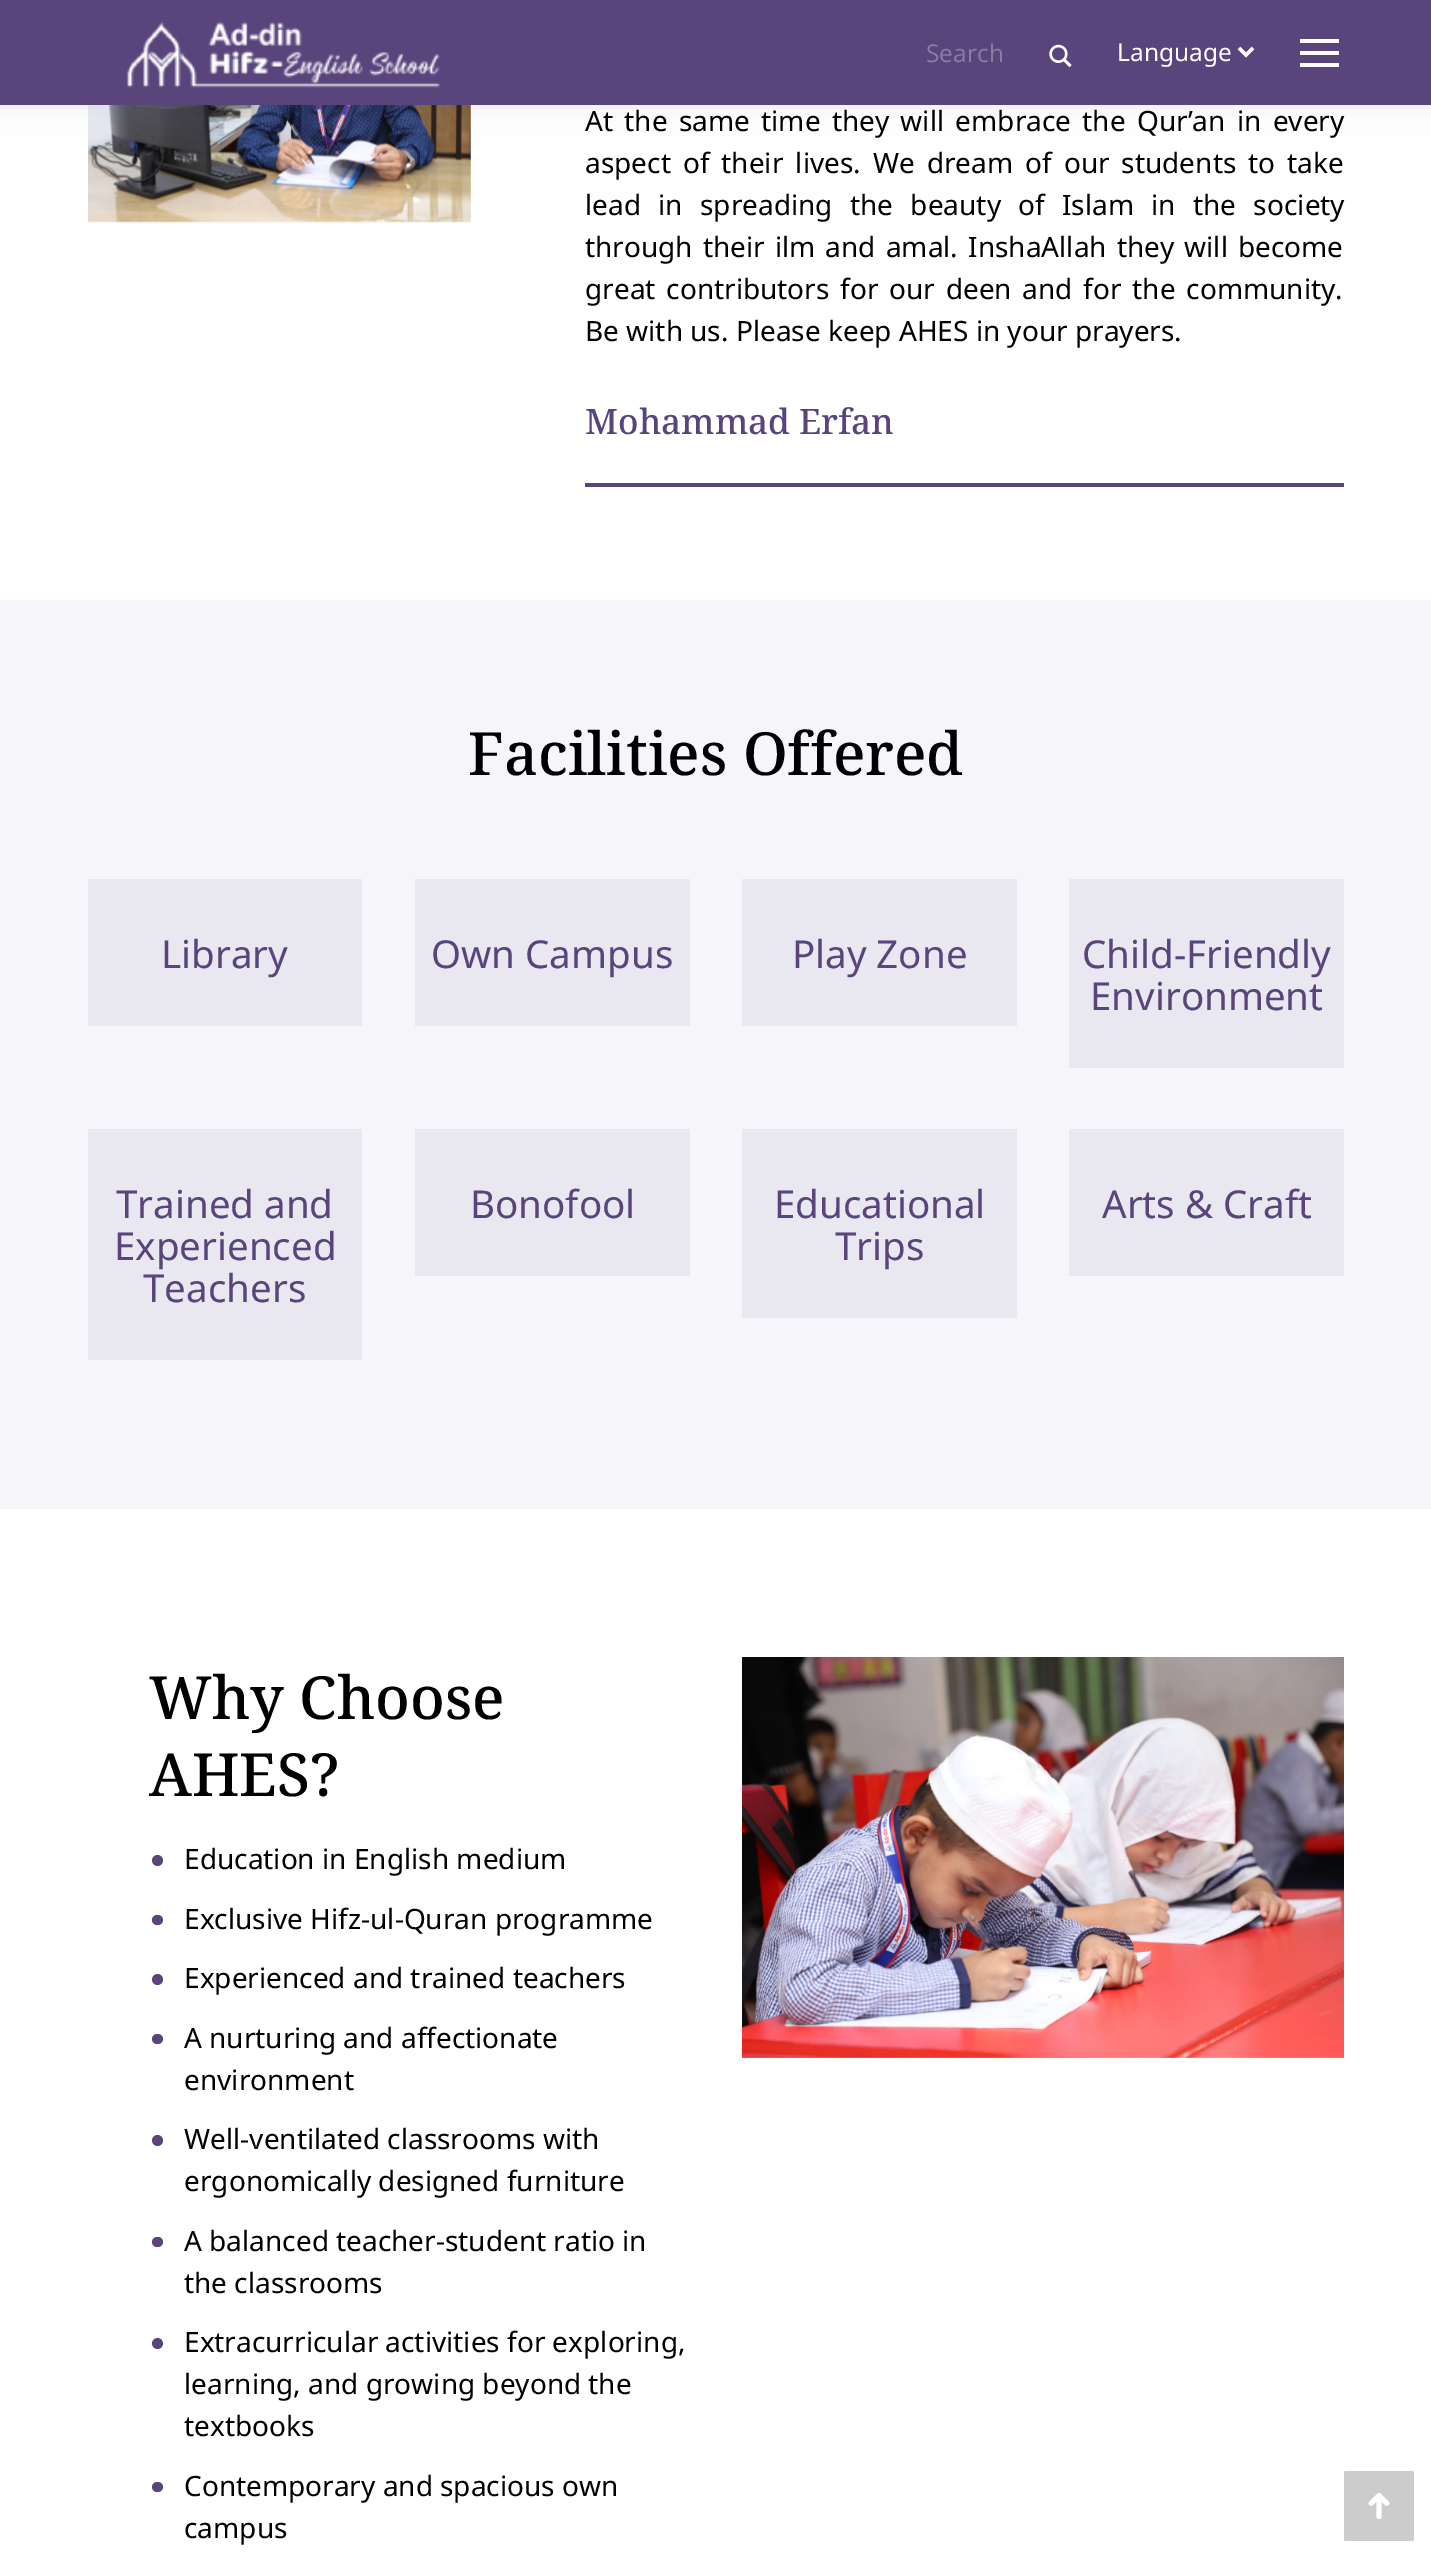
%!PS-Adobe-3.0
%%BoundingBox: 0 0 1431 2557
%%LanguageLevel: 3
%%Pages: 1
%%EndComments
%%BeginProlog
/setink { dup -16 bitshift 255 div exch dup -8 bitshift 255 and 255 div exch 255 and 255 div setrgbcolor } def
/usefont { [ exch dup neg 0 0 3 -1 roll 0 0 ] selectfont } def
/setalpha { dup .setfillconstantalpha .setstrokeconstantalpha } def
/disc { newpath 0 360 arc closepath } def
/rrect { 5 dict begin { /r /h /w /y /x } { exch def } forall
  x r add y moveto x w add y 2 copy h add r arct x w add y h add x 1 index r arct
  x y h add x y r arct x y 2 copy exch w add exch r arct closepath end } def
/softshadow { 12 dict begin { /a /b /q /h /w /y /x } { exch def } forall gsave /was 0 def
  9 -2 -9 { dup b mul 4 div /e exch def 1 sub .425 mul 2.718 exch exp 1 add a .99 .min exch div /now exch def
    1 1 now sub 1 was sub div sub setalpha /was now def
    w h .min e 2 mul add 0 gt { x e sub y e sub w e 2 mul add h e 2 mul add
      q e add b .6 mul add w h .min 2 div e add .min 0 .max rrect fill } if } for grestore end } def
/drawimage { 5 dict begin { /h /w /y /x /name } { exch def } forall
  gsave x y translate w h scale
  w h 8 [w 0 0 h 0 0] name (r) file false 3 colorimage grestore end } def
%%EndProlog
%%BeginSetup
<< /PageSize [1431 2557] /PageUsesTransparency true >> setpagedevice
%%EndSetup
%%Page: 1 1
0 .pushpdf14devicefilter
0 2557 translate 1 -1 scale
4 setmiterlimit
16#FFFFFF setink
0 0 1431 2557 rectfill
(img3.raw) 88 105 383 118 drawimage
16#000000 setink
-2 -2 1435 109 0 13 0.07 softshadow
16#59447C setink
0 0 1431 105 rectfill
(img1.raw) 126 22 314 66 drawimage
/OpenSans-Regular 24.5 usefont
16#8B7CA3 setink
926 62 moveto (Search) show
(img2.raw) 1049 44 23 24 drawimage
16#FFFFFF setink
3.5 setlinewidth
1239 48 moveto 1246 55 lineto 1253 48 lineto stroke
/NotoSans-Regular 24.5 usefont
1117 61 moveto (Language) show
[
    [1300 39 39 4 16#FFFFFF]
    [1300 51 39 4 16#FFFFFF]
    [1300 63 39 4 16#FFFFFF]
] { aload pop setink rectfill } forall
/NotoSans-Regular 28 usefont
16#000000 setink
585 131 moveto 4 0 32 (At the same time they will embrace the Qur’an in every) widthshow
585 173 moveto 4.75 0 32 (aspect of their lives. We dream of our students to take) widthshow
585 215 moveto 10 0 32 (lead in spreading the beauty of Islam in the society) widthshow
585 257 moveto 2.75 0 32 (through their ilm and amal. InshaAllah they will become) widthshow
585 299 moveto 3.5 0 32 (great contributors for our deen and for the community.) widthshow
585 341 moveto (Be with us. Please keep AHES in your prayers.) show
16#59447C setink
585 483 759 4 rectfill
/NotoSerif-Medium 35 usefont
585 434 moveto (Mohammad Erfan) show
16#F5F5FA setink
0 600 1431 909 rectfill
/NotoSerif-Medium 59.5 usefont
16#000000 setink
468 775 moveto (Facilities Offered) show
16#E9E7F0 setink
88 879 274 147 rectfill
/NotoSans-Regular 38.5 usefont
16#59447C setink
161 968 moveto (Library) show
16#E9E7F0 setink
415 879 275 147 rectfill
16#59447C setink
431 968 moveto (Own Campus) show
16#E9E7F0 setink
742 879 275 147 rectfill
16#59447C setink
792 968 moveto (Play Zone) show
16#E9E7F0 setink
1069 879 275 189 rectfill
16#59447C setink
1082 968 moveto (Child-Friendly) show
1090 1010 moveto (Environment) show
16#E9E7F0 setink
88 1129 274 231 rectfill
16#59447C setink
[
    [(Trained and) 116 1218]
    [(Experienced) 114 1260]
    [(Teachers) 143 1302]
] { aload pop moveto show } forall
16#E9E7F0 setink
415 1129 275 147 rectfill
16#59447C setink
470 1218 moveto (Bonofool) show
16#E9E7F0 setink
742 1129 275 189 rectfill
16#59447C setink
774 1218 moveto (Educational) show
835 1260 moveto (Trips) show
16#E9E7F0 setink
1069 1129 275 147 rectfill
16#59447C setink
1102 1218 moveto (Arts & Craft) show
/NotoSerif-Medium 59.5 usefont
16#000000 setink
149 1719 moveto (Why Choose) show
149 1796 moveto (AHES?) show
16#59447C setink
157.5 1860.5 5.5 disc fill
/NotoSans-Regular 28 usefont
16#000000 setink
184 1869 moveto (Education in English medium) show
16#59447C setink
152 1915 11 10 5 rrect fill
16#000000 setink
184 1929 moveto (Exclusive Hifz-ul-Quran programme) show
16#59447C setink
157.5 1979.5 5.5 disc fill
16#000000 setink
184 1988 moveto (Experienced and trained teachers) show
16#59447C setink
152 2034 11 10 5 rrect fill
16#000000 setink
184 2048 moveto (A nurturing and affectionate) show
184 2090 moveto (environment) show
16#59447C setink
157.5 2140.5 5.5 disc fill
16#000000 setink
184 2149 moveto (Well-ventilated classrooms with) show
184 2191 moveto (ergonomically designed furniture) show
16#59447C setink
152 2237 11 10 5 rrect fill
16#000000 setink
184 2251 moveto (A balanced teacher-student ratio in) show
184 2293 moveto (the classrooms) show
16#59447C setink
157.5 2343.5 5.5 disc fill
16#000000 setink
[
    [(Extracurricular activities for exploring,) 184 2352]
    [(learning, and growing beyond the) 184 2394]
    [(textbooks) 184 2436]
] { aload pop moveto show } forall
16#59447C setink
152 2482 11 10 5 rrect fill
16#000000 setink
184 2496 moveto (Contemporary and spacious own) show
184 2538 moveto (campus) show
(img4.raw) 742 1657 602 401 drawimage
16#CCCCCC setink
1344 2471 70 70 2 rrect fill
(img5.raw) 1368 2493 22 26 drawimage
.poppdf14devicefilter showpage
%%EOF
